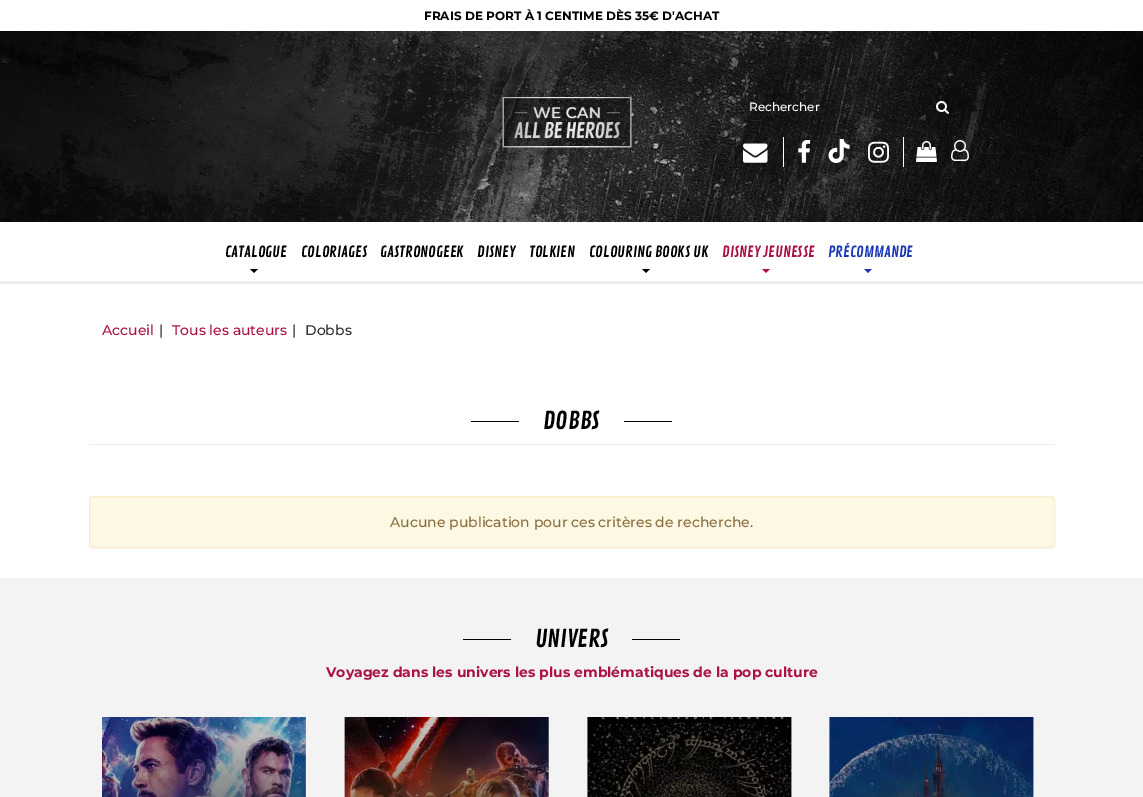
%!PS-Adobe-3.0
%%BoundingBox: 0 0 1143 797
%%LanguageLevel: 3
%%Pages: 1
%%EndComments
%%BeginProlog
/setink { dup -16 bitshift 255 div exch dup -8 bitshift 255 and 255 div exch 255 and 255 div setrgbcolor } def
/usefont { [ exch dup neg 0 0 3 -1 roll 0 0 ] selectfont } def
/rrect { 5 dict begin { /r /h /w /y /x } { exch def } forall
  x r add y moveto x w add y 2 copy h add r arct x w add y h add x 1 index r arct
  x y h add x y r arct x y 2 copy exch w add exch r arct closepath end } def
/drawimage { 5 dict begin { /h /w /y /x /name } { exch def } forall
  gsave x y translate w h scale
  w h 8 [w 0 0 h 0 0] name (r) file false 3 colorimage grestore end } def
%%EndProlog
%%BeginSetup
<< /PageSize [1143 797] >> setpagedevice
%%EndSetup
%%Page: 1 1
0 797 translate 1 -1 scale
4 setmiterlimit
16#FFFFFF setink
0 0 1143 797 rectfill
/Montserrat-Bold 12 usefont
16#000000 setink
424 20 moveto (FRAIS DE PORT À 1 CENTIME DÈS 35€ D'ACHAT) show
(img1.raw) 0 31 1143 191 drawimage
(img2.raw) 502 97 130 51 drawimage
/Montserrat-Medium 12 usefont
16#FFFFFF setink
749 111 moveto (Rechercher) show
(img3.raw) 936 101 13 13 drawimage
783 137 1 30 rectfill
(img4.raw) 743 143 25 20 drawimage
(img5.raw) 798 140 13 23 drawimage
(img6.raw) 828 139 22 24 drawimage
903 137 1 30 rectfill
(img7.raw) 868 141 21 22 drawimage
(img8.raw) 916 141 21 21 drawimage
(img9.raw) 951 140 18 21 drawimage
16#EEEEEE setink
0 281 1143 3 rectfill
/ContrailOne-Regular 15 usefont
16#000000 setink
225 257 moveto (CATALOGUE) show
250 269 moveto 258 269 lineto 254 273 lineto closepath fill
[
    [(COLORIAGES) 301 257]
    [(GASTRONOGEEK) 380 257]
    [(DISNEY) 477 257]
    [(TOLKIEN) 529 257]
    [(COLOURING BOOKS UK) 589 257]
] { aload pop moveto show } forall
642 269 moveto 650 269 lineto 646 273 lineto closepath fill
16#AB1142 setink
722 257 moveto (DISNEY JEUNESSE) show
762 269 moveto 770 269 lineto 766 273 lineto closepath fill
16#1A39B8 setink
828 257 moveto (PRÉCOMMANDE) show
864 269 moveto 872 269 lineto 868 273 lineto closepath fill
/Montserrat-Medium 14 usefont
16#AB1142 setink
102 335 moveto (Accueil) show
16#2E3132 setink
159 335 moveto (|) show
16#AB1142 setink
172 335 moveto (Tous les auteurs) show
16#2E3132 setink
292 335 moveto (|) show
305 335 moveto (Dobbs) show
16#000000 setink
471 421 48 1 rectfill
/ContrailOne-Regular 24 usefont
543 429 moveto (DOBBS) show
624 421 48 1 rectfill
16#EEEEEE setink
89 444 966 1 rectfill
16#FCF8E3 setink
89.5 496.5 965 51 3.5 rrect gsave fill grestore
16#FAEBCC setink
stroke
/Montserrat-Medium 14 usefont
16#8A6D3B setink
390 527 moveto (Aucune publication pour ces critères de recherche.) show
16#F3F3F3 setink
0 578 1143 219 rectfill
16#000000 setink
463 639 48 1 rectfill
/ContrailOne-Regular 24 usefont
535 647 moveto (UNIVERS) show
632 639 48 1 rectfill
/Montserrat-Bold 14 usefont
16#AB1142 setink
326 677 moveto (Voyagez dans les univers les plus emblématiques de la pop culture) show
(img10.raw) 102 717 204 80 drawimage
(img11.raw) 344 717 205 80 drawimage
(img12.raw) 587 717 205 80 drawimage
(img13.raw) 829 717 205 80 drawimage
showpage
%%EOF
